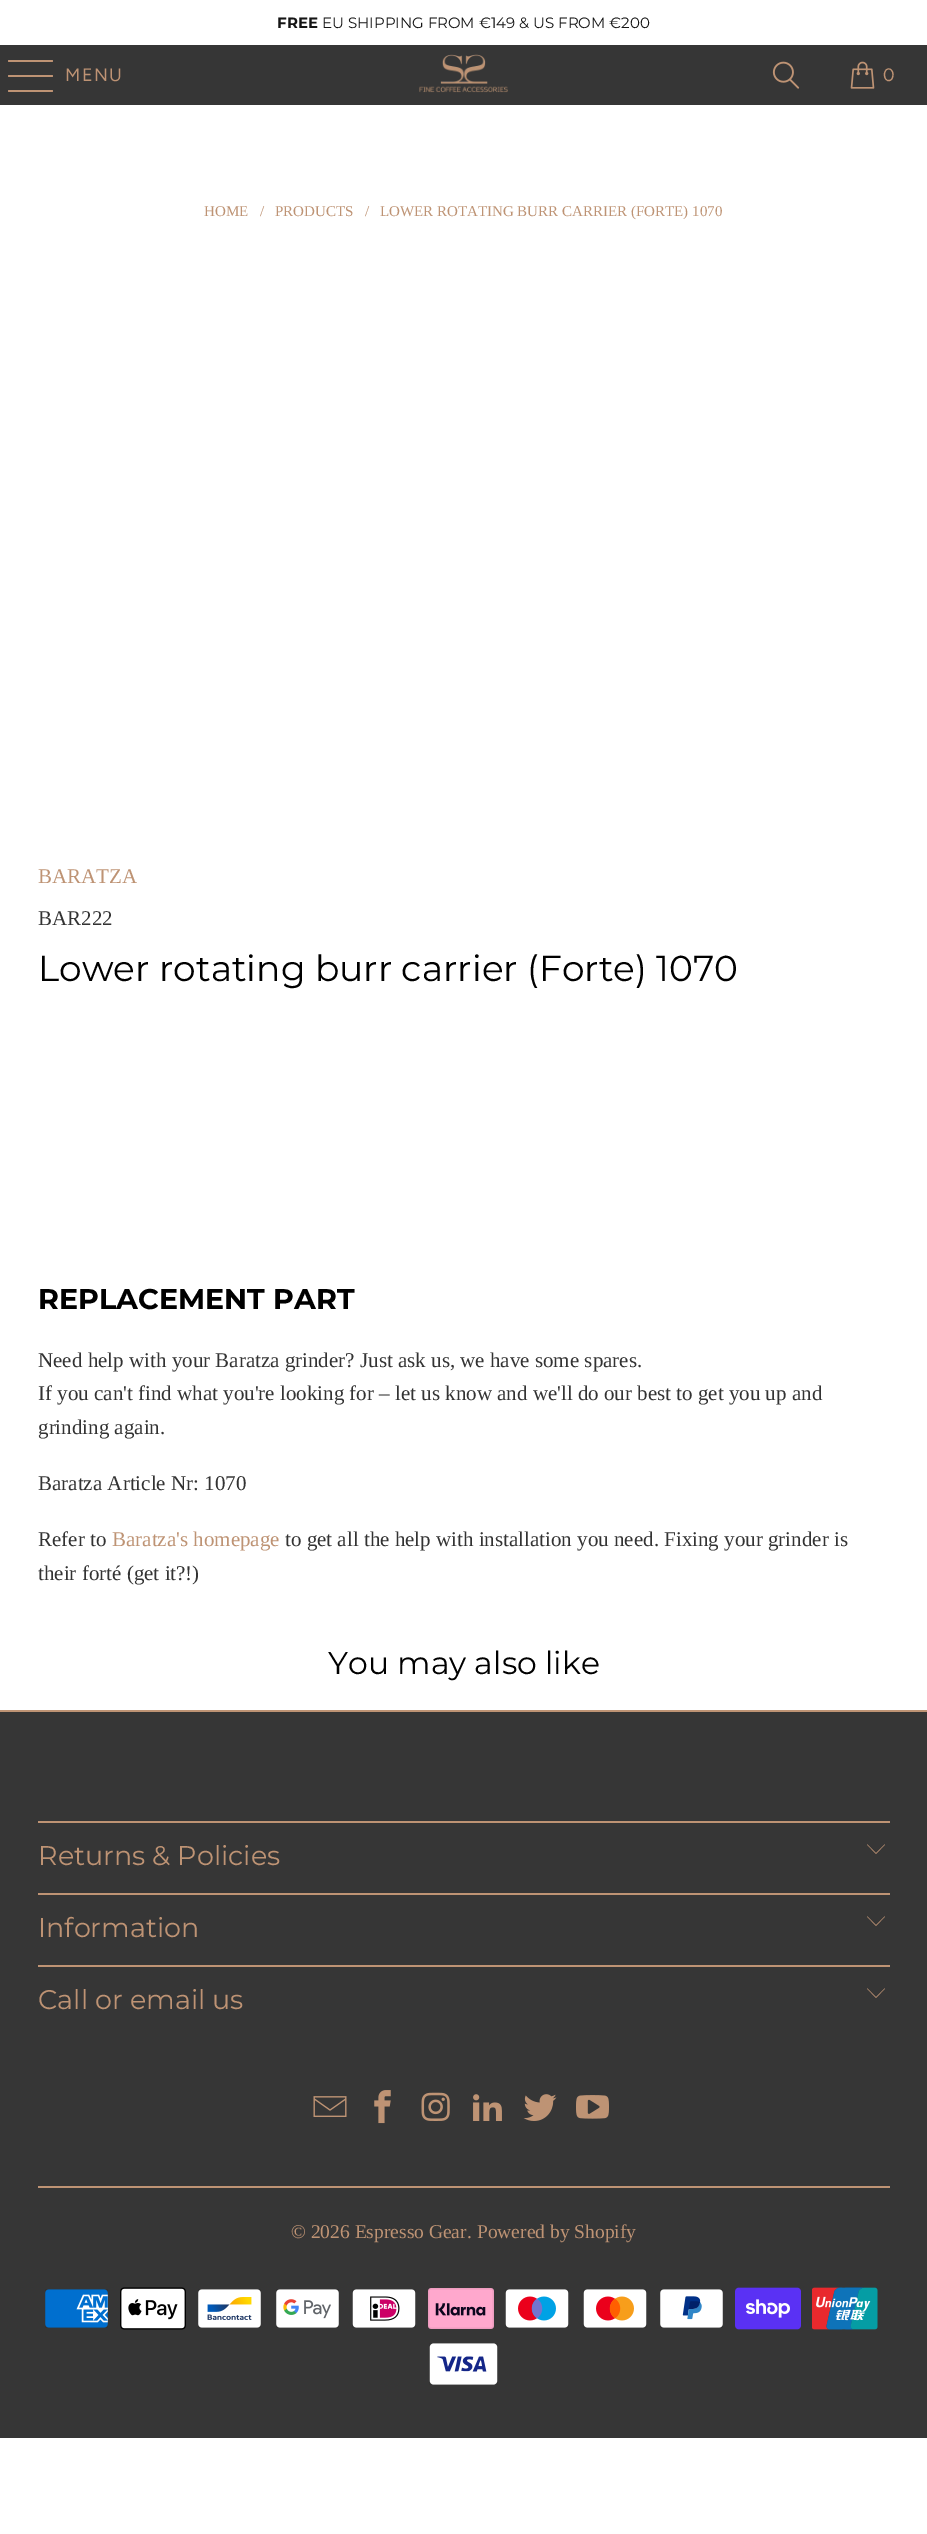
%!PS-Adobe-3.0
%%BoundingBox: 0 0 927 2534
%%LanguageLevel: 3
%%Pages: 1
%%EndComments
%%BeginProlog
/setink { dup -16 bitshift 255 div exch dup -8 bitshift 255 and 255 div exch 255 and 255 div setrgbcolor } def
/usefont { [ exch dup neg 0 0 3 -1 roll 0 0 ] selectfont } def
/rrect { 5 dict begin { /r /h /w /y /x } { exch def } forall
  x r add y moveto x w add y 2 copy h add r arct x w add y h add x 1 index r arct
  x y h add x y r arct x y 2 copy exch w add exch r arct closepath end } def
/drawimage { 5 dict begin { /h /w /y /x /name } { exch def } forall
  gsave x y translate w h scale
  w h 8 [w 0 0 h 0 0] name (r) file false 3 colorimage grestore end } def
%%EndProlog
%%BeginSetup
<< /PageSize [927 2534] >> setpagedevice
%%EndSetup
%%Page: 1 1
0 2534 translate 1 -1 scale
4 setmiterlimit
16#FFFFFF setink
0 0 927 2534 rectfill
/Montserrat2-Thin 15 usefont
16#151515 setink
277 28 moveto (FREE) show
/Montserrat-Thin 15 usefont
322 28 moveto (EU SHIPPING FROM €149 & US FROM €200) show
16#363636 setink
0 45 927 60 rectfill
16#BE9374 setink
8 60 45 2 1 rrect fill
8 75 45 2 1 rrect fill
8 90 45 2 1 rrect fill
/Figtree-Regular 18 usefont
65 81 moveto 1.5 0 (MENU) ashow
(img1.raw) 419 54 89 39 drawimage
(img2.raw) 772 61 28 28 drawimage
(img3.raw) 850 61 25 28 drawimage
883 81 moveto 1.5 0 (0) ashow
/LiberationSerif-Regular 15 usefont
[
    [(HOME) 204 216]
    [(/) 260 216]
    [(PRODUCTS) 275 216]
    [(/) 365 216]
    [(LOWER ROTATING BURR CARRIER \(FORTE\) 1070) 380 216]
] { aload pop moveto show } forall
/LiberationSerif-Regular 21 usefont
38 883 moveto (BARATZA) show
16#333333 setink
38 925 moveto (BAR222) show
/Montserrat-Thin 36 usefont
16#000000 setink
38 981 moveto (Lower rotating burr carrier \(Forte\) 1070) show
/Montserrat2-Thin 28.5 usefont
38 1309 moveto (REPLACEMENT PART) show
/LiberationSerif-Regular 21 usefont
16#333333 setink
[
    [(Need help with your Baratza grinder? Just ask us, we have some spares.) 38 1367]
    [(If you can't find what you're looking for – let us know and we'll do our best to get you up and) 38 1400]
    [(grinding again.) 38 1434]
    [(Baratza Article Nr: 1070) 38 1490]
    [(Refer to) 38 1546]
] { aload pop moveto show } forall
16#BE9374 setink
112 1546 moveto (Baratza's homepage) show
16#333333 setink
285 1546 moveto (to get all the help with installation you need. Fixing your grinder is) show
38 1580 moveto (their forté \(get it?!\)) show
/Montserrat-Thin 31.5 usefont
16#000000 setink
328 1674 moveto (You may also like) show
[
    [0 1712 927 726 16#363636]
    [0 1710 927 2 16#BE9374]
    [38 1821 852 2 16#BE9374]
] { aload pop setink rectfill } forall
/Montserrat-Thin 27 usefont
38 1865 moveto (Returns & Policies) show
876 1854 moveto 867 1844.5 lineto 867.5 1844.5 lineto 876 1853 lineto 884.5 1844.5 lineto 885 1844.5 lineto closepath fill
38 1893 852 2 rectfill
38 1937 moveto (Information) show
876 1926 moveto 867 1916.5 lineto 867.5 1916.5 lineto 876 1925 lineto 884.5 1916.5 lineto 885 1916.5 lineto closepath fill
38 1965 852 2 rectfill
38 2009 moveto (Call or email us) show
876 1998 moveto 867 1988.5 lineto 867.5 1988.5 lineto 876 1997 lineto 884.5 1988.5 lineto 885 1988.5 lineto closepath fill
(img4.raw) 313 2096 34 21 drawimage
(img5.raw) 374 2090 17 34 drawimage
(img6.raw) 421 2092 29 29 drawimage
(img7.raw) 473 2094 29 27 drawimage
(img8.raw) 523 2094 34 27 drawimage
(img9.raw) 576 2095 33 24 drawimage
38 2186 852 2 rectfill
/LiberationSerif-Regular 19.5 usefont
291 2238 moveto (© 2026 Espresso Gear) show
467 2238 moveto (. Powered by Shopify) show
(img10.raw) 45 2289 63 39 drawimage
(img11.raw) 120 2287 66 43 drawimage
(img12.raw) 198 2289 63 39 drawimage
(img13.raw) 276 2289 63 39 drawimage
(img14.raw) 352 2289 64 39 drawimage
(img15.raw) 428 2288 66 41 drawimage
(img16.raw) 505 2289 64 39 drawimage
(img17.raw) 583 2289 64 39 drawimage
(img18.raw) 660 2289 63 39 drawimage
(img19.raw) 735 2287 66 43 drawimage
(img20.raw) 812 2287 66 43 drawimage
(img21.raw) 429 2343 69 42 drawimage
showpage
%%EOF
